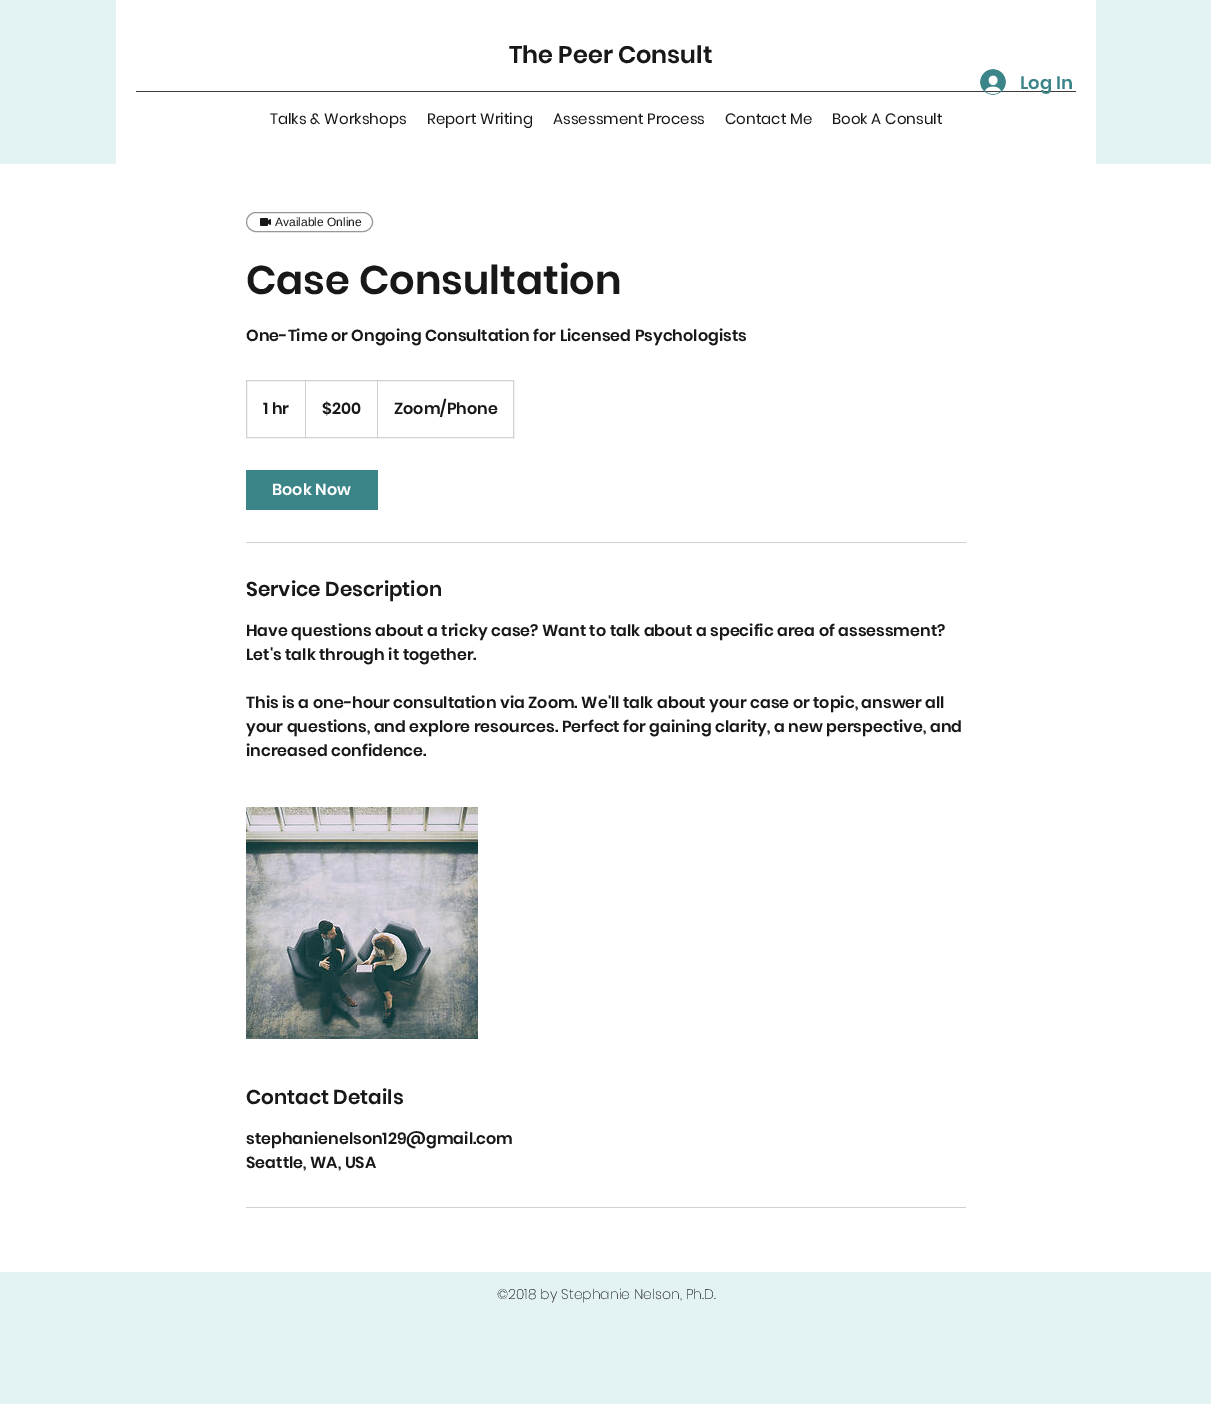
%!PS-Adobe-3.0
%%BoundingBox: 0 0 1211 1404
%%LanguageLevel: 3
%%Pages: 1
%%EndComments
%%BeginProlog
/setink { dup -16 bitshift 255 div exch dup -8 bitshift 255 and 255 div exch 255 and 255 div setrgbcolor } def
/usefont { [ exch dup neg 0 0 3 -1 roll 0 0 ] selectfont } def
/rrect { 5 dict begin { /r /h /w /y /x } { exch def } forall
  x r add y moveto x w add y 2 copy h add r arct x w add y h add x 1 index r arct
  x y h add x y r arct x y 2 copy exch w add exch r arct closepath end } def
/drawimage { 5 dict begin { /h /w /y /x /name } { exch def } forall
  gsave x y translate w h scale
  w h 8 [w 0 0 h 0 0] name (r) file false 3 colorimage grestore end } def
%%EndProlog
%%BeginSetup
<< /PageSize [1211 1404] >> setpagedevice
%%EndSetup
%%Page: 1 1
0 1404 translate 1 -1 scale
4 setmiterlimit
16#E3F2F3 setink
0 0 1211 1404 rectfill
16#FFFFFF setink
116 0 980 164 rectfill
/Poppins-SemiBold 24 usefont
16#181818 setink
509 63 moveto (The Peer Consult) show
16#3B3B3B setink
136 91 940 1 rectfill
(img1.raw) 980 69 26 26 drawimage
/Poppins-SemiBold 18 usefont
16#3B8589 setink
1020 89 moveto (Log In) show
/Poppins-Regular 15 usefont
16#181818 setink
[
    [(Talks & Workshops) 270 124]
    [(Report Writing) 427 124]
    [(Assessment Process) 553 124]
    [(Contact Me) 725 124]
    [(Book A Consult) 832 124]
] { aload pop moveto show } forall
16#FFFFFF setink
0 164 1211 1108 rectfill
16#979797 setink
246.5 212.5 126 19 9.5 rrect stroke
(img2.raw) 260 218 11 8 drawimage
/LiberationSans-Regular 12 usefont
16#181818 setink
275 226 moveto (Available Online) show
/Poppins-SemiBold 40 usefont
246 294 moveto (Case Consultation) show
/Poppins-SemiBold 16 usefont
246 341 moveto (One-Time or Ongoing Consultation for Licensed Psychologists) show
16#D1D1D1 setink
246.5 380.5 267 57 rectstroke
16#181818 setink
263 414 moveto (1 hr) show
16#D1D1D1 setink
305 437 moveto 305 380 lineto 306 381 lineto 306 437 lineto closepath fill
16#181818 setink
322 414 moveto ($200) show
16#D1D1D1 setink
377 437 moveto 377 380 lineto 378 381 lineto 378 437 lineto closepath fill
16#181818 setink
394 414 moveto (Zoom/Phone) show
16#3B8589 setink
246 470 132 40 rectfill
16#FFFFFF setink
272 495 moveto (Book Now) show
16#D1D1D1 setink
246 542 720 1 rectfill
/Poppins-SemiBold 20 usefont
16#181818 setink
246 596 moveto (Service Description) show
/Poppins-SemiBold 16 usefont
[
    [(Have questions about a tricky case? Want to talk about a specific area of assessment?) 246 636]
    [(Let's talk through it together.) 246 660]
    [(This is a one-hour consultation via Zoom. We'll talk about your case or topic, answer all) 246 708]
    [(your questions, and explore resources. Perfect for gaining clarity, a new perspective, and) 246 732]
    [(increased confidence.) 246 756]
] { aload pop moveto show } forall
(img3.raw) 246 807 232 232 drawimage
/Poppins-SemiBold 20 usefont
246 1104 moveto (Contact Details) show
/Poppins-SemiBold 16 usefont
246 1144 moveto (stephanienelson129@gmail.com) show
246 1168 moveto (Seattle, WA, USA) show
16#D1D1D1 setink
246 1207 720 1 rectfill
16#E7F4F5 setink
0 1272 1211 1 rectfill
/Poppins-ExtraLight 14 usefont
16#181818 setink
497 1299 moveto (©2018 by Stephanie Nelson, Ph.D.) show
showpage
%%EOF
